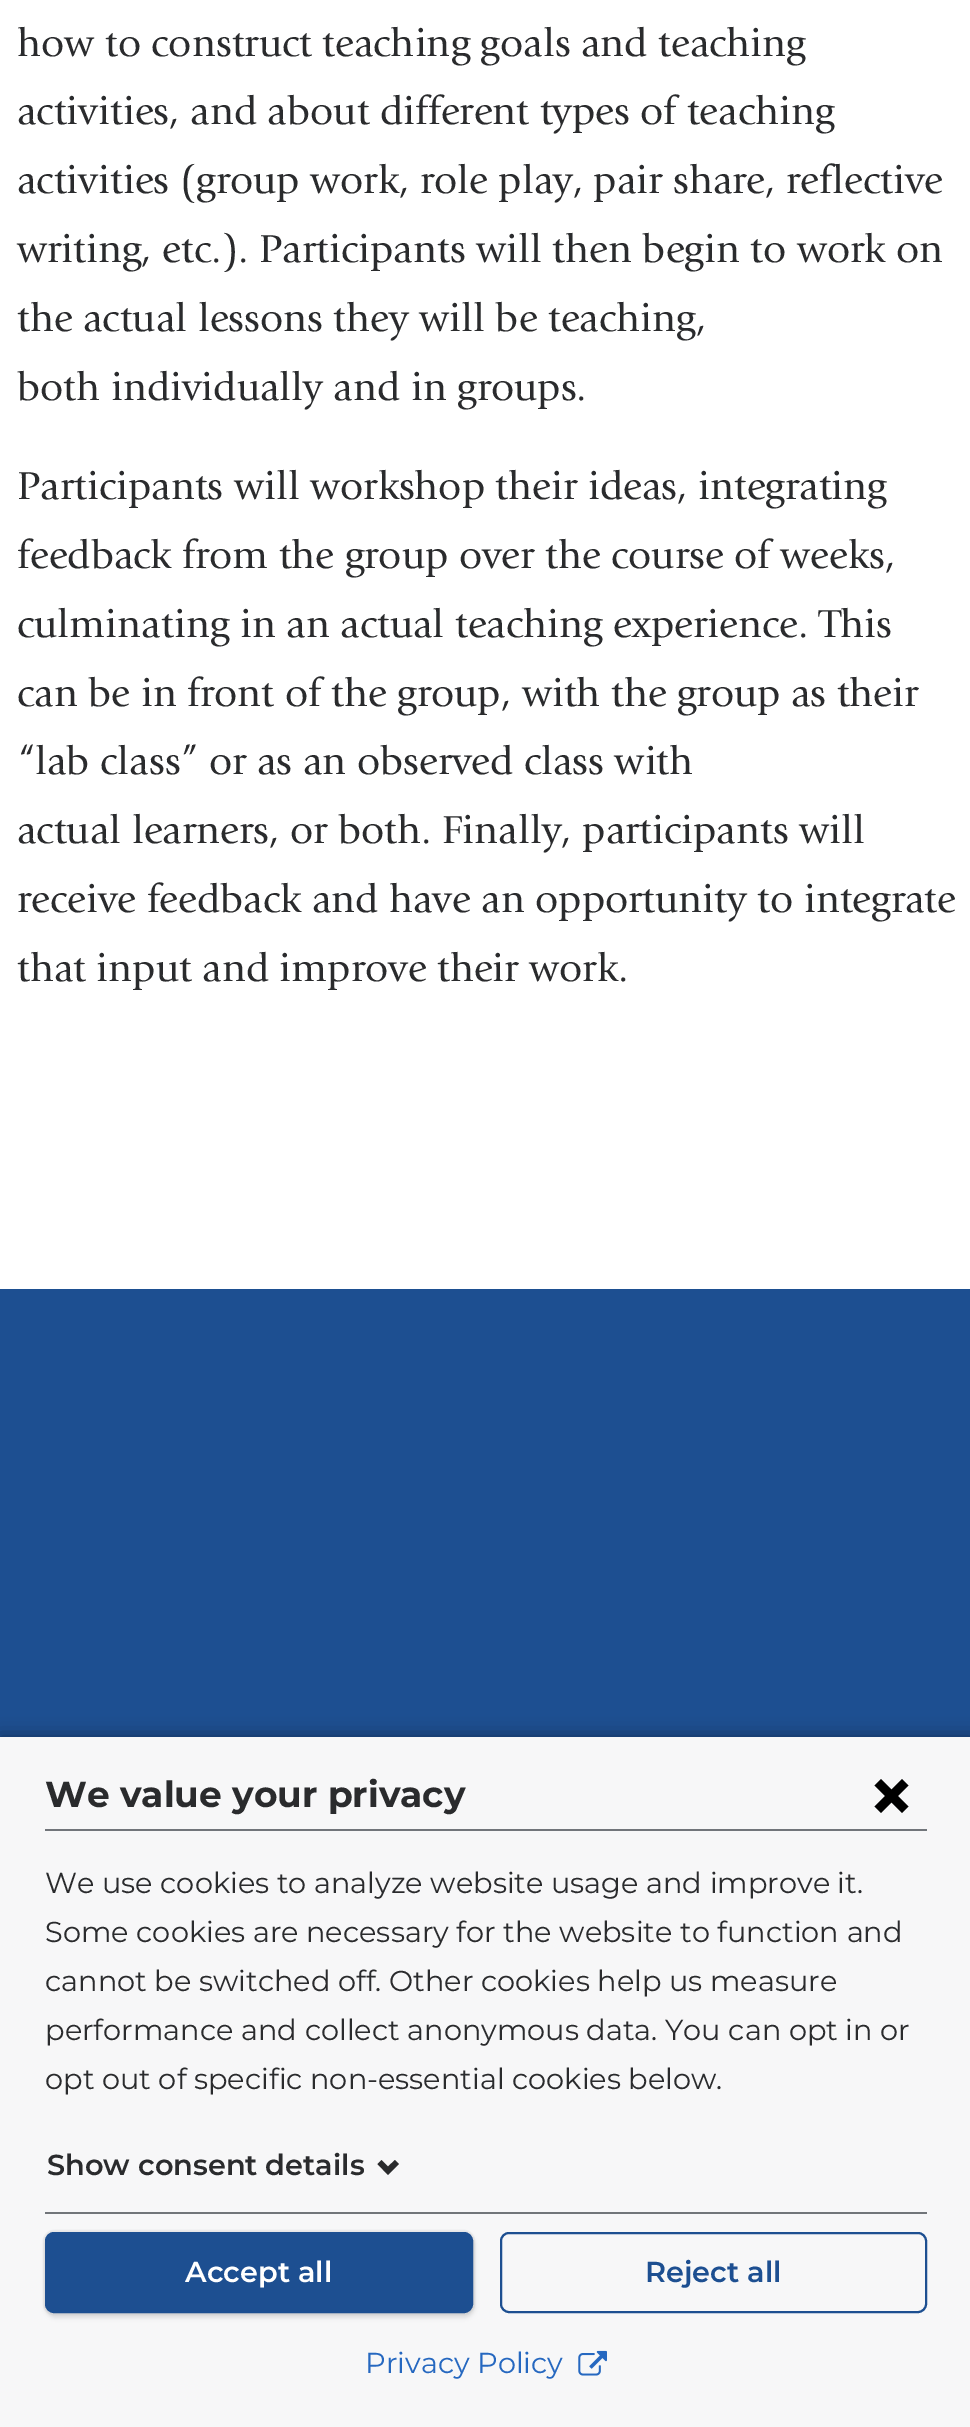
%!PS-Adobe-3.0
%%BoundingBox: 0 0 970 2427
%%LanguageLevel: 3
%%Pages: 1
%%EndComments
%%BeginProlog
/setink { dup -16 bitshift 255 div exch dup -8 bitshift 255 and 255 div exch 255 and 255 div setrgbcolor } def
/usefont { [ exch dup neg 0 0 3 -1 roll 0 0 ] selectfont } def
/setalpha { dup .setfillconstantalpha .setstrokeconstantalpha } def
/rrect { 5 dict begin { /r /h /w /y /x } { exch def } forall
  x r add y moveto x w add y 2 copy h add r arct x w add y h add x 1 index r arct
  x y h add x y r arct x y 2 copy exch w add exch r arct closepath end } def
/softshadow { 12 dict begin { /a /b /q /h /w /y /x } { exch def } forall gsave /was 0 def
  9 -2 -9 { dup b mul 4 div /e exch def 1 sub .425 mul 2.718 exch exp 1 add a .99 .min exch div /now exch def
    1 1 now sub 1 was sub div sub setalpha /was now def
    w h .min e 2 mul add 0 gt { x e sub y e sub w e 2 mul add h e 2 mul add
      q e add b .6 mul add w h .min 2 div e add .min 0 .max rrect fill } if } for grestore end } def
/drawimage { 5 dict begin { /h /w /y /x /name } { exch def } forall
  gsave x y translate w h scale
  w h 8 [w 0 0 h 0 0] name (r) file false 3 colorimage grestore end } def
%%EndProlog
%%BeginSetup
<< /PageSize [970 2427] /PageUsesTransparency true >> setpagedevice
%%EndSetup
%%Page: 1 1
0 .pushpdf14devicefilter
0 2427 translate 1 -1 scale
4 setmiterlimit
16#FFFFFF setink
0 0 970 2427 rectfill
/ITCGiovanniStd-Regular 40.5 usefont
16#2A2B2D setink
[
    [(how to construct teaching goals and teaching) 17 56]
    [(activities, and about different types of teaching) 17 124]
    [(activities \(group work, role play, pair share, reflective) 17 193]
    [(writing, etc.\). Participants will then begin to work on) 17 262]
    [(the actual lessons they will be teaching,) 17 331]
    [(both individually and in groups.) 17 400]
    [(Participants will workshop their ideas, integrating) 17 499]
    [(feedback from the group over the course of weeks,) 17 568]
    [(culminating in an actual teaching experience. This) 17 637]
    [(can be in front of the group, with the group as their) 17 706]
    [(“lab class” or as an observed class with) 17 774]
    [(actual learners, or both. Finally, participants will) 17 843]
    [(receive feedback and have an opportunity to integrate) 17 912]
    [(that input and improve their work.) 17 981]
] { aload pop moveto show } forall
16#1D4F91 setink
0 1289 970 448 rectfill
16#000000 setink
0 1737 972 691 0 9 0.4 softshadow
16#F7F7F8 setink
0 1737 970 690 rectfill
16#71757A setink
45 1829 882 2 rectfill
/Montserrat-Bold 36 usefont
16#2A2B2D setink
45 1807 moveto (We value your privacy) show
16#000000 setink
874.5 1785.5 moveto 881 1779 lineto 908.5 1806.5 lineto 902 1813 lineto 874.5 1785.5 lineto fill
902 1779 moveto 908.5 1785.5 lineto 881 1813 lineto 874.5 1806.5 lineto 902 1779 lineto fill
/Montserrat-Regular 28.8 usefont
16#2A2B2D setink
[
    [(We use cookies to analyze website usage and improve it.) 45 1893]
    [(Some cookies are necessary for the website to function and) 45 1942]
    [(cannot be switched off. Other cookies help us measure) 45 1991]
    [(performance and collect anonymous data. You can opt in or) 45 2040]
    [(opt out of specific non-essential cookies below.) 45 2089]
] { aload pop moveto show } forall
/Montserrat-SemiBold 28.8 usefont
47 2175 moveto (Show consent details) show
377.5 2164 moveto 381.5 2160 lineto 388 2166.5 lineto 395 2160 lineto 399 2164 lineto 388 2175 lineto closepath fill
16#71757A setink
45 2212 882 2 rectfill
16#000000 setink
43 2230 432 85 11 0.5 0.06 softshadow
45 2234 430 84 11 2 0.1 softshadow
16#1D4F91 setink
46 2233 426 79 8 rrect gsave fill grestore
2 setlinewidth
stroke
16#FFFFFF setink
185 2282 moveto (Accept all) show
16#1D4F91 setink
501 2233 425 79 8 rrect stroke
645 2282 moveto (Reject all) show
/Montserrat-Regular 28.8 usefont
16#2668C0 setink
365 2373 moveto (Privacy Policy) show
(img1.raw) 578 2350 29 26 drawimage
.poppdf14devicefilter showpage
%%EOF
